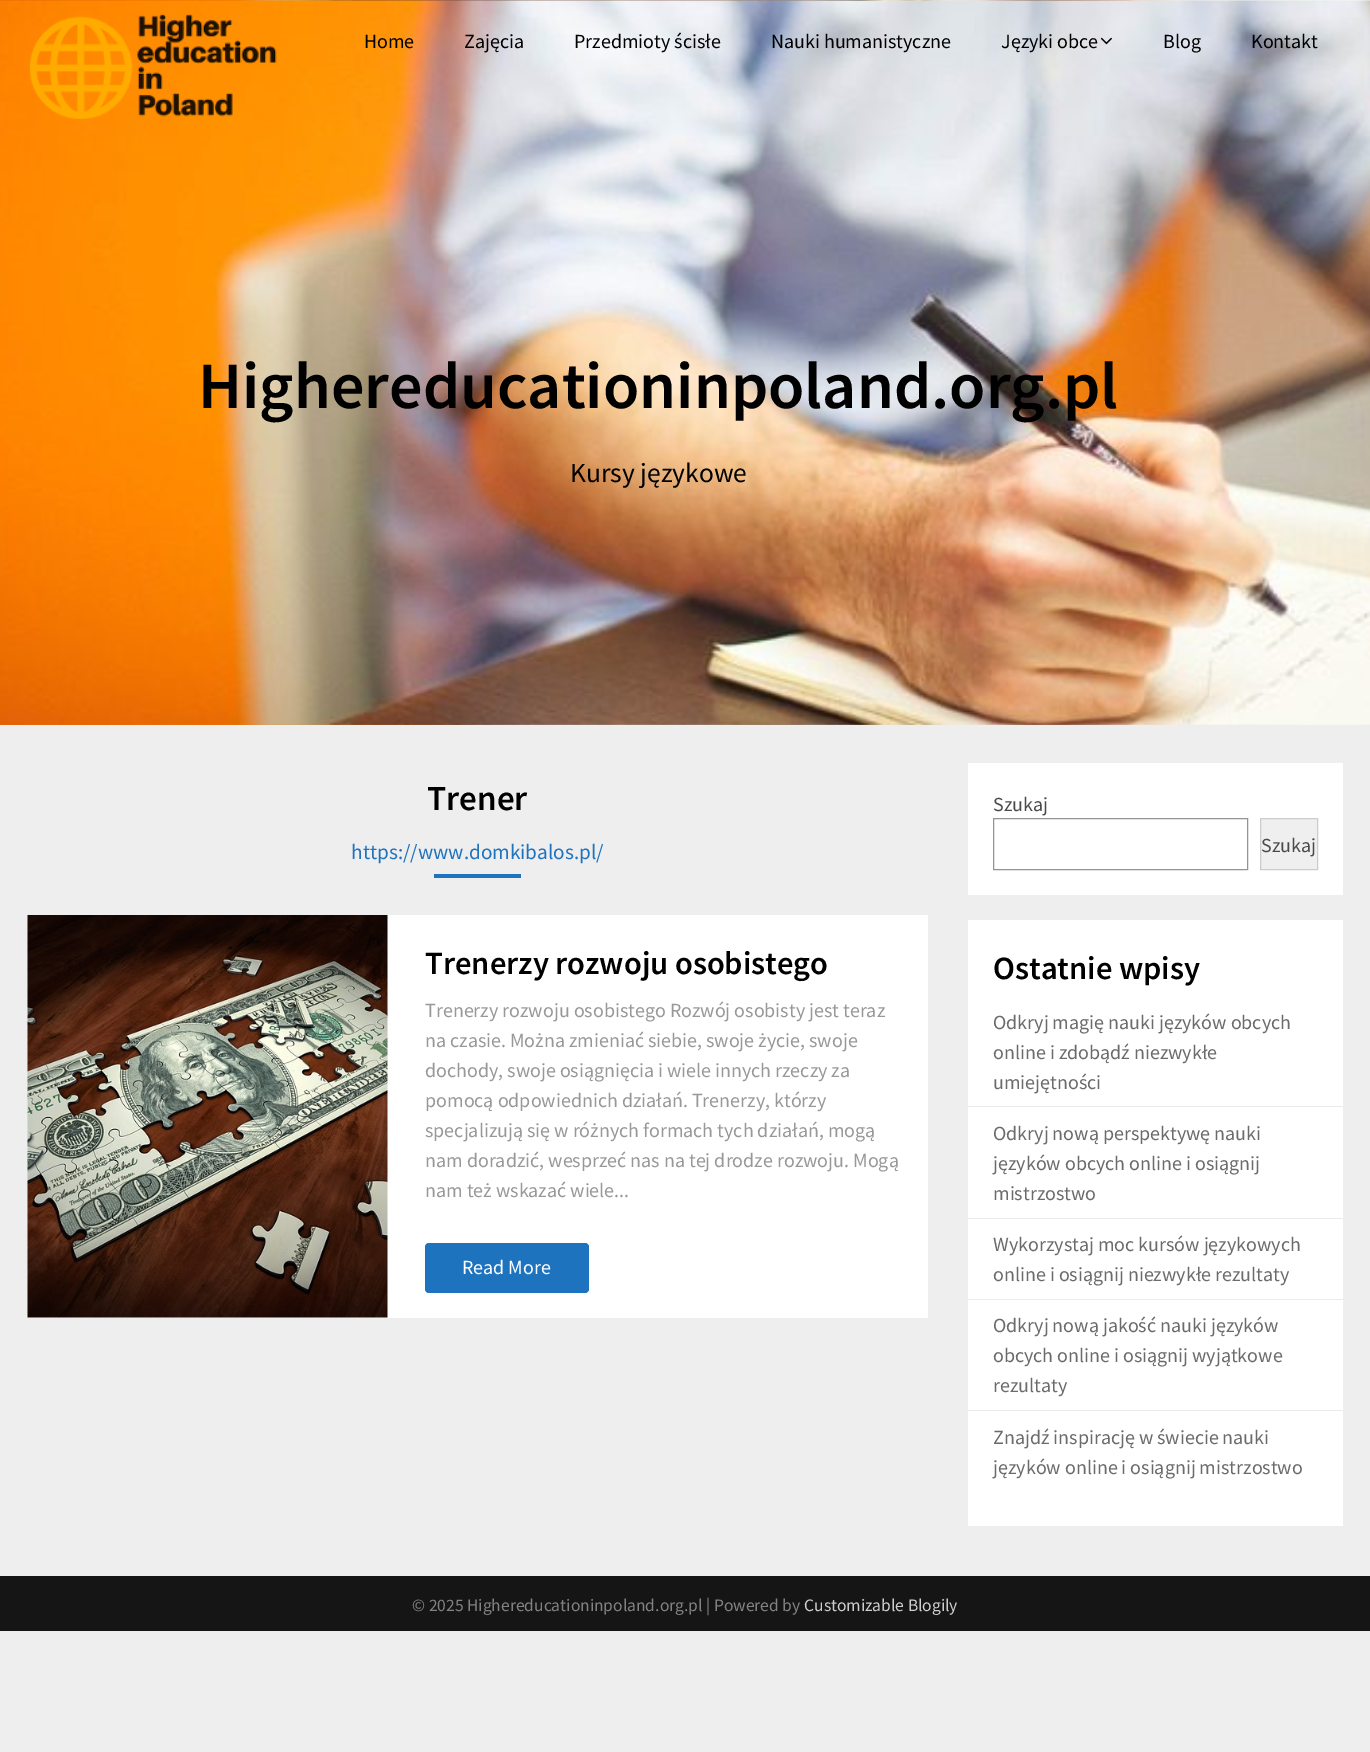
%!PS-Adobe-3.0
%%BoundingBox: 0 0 1370 1752
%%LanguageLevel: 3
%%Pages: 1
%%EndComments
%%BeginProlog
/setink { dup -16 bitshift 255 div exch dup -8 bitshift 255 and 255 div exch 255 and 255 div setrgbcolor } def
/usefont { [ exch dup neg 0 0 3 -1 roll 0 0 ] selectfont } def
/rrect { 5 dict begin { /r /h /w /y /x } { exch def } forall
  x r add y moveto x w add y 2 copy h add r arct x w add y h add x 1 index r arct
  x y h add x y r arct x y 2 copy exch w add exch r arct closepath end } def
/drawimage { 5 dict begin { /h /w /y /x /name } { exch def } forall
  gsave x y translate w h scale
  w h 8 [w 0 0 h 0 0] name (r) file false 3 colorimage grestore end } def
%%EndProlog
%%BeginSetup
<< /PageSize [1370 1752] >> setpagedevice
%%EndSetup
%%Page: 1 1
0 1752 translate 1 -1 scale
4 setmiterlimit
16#EEEEEE setink
0 0 1370 1752 rectfill
(img1.raw) 0 0 1370 725 drawimage
(img2.raw) 29 14 248 105 drawimage
/SourceSansPro-Regular 20 usefont
16#000000 setink
[
    [(Home) 364 48]
    [(Zajęcia) 464 48]
    [(Przedmioty ścisłe) 574 48]
    [(Nauki humanistyczne) 771 48]
    [(Języki obce) 1001 48]
] { aload pop moveto show } forall
(img3.raw) 1100 37 12 8 drawimage
1163 48 moveto (Blog) show
1251 48 moveto (Kontakt) show
/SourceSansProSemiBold-SemiBold 66.25 usefont
198 408 moveto (Highereducationinpoland.org.pl) show
/SourceSansPro-Regular 27.5 usefont
570 482 moveto (Kursy językowe) show
/SourceSansProSemiBold-SemiBold 35 usefont
427 810 moveto (Trener) show
/SourceSansPro-Regular 21.25 usefont
16#1E73BE setink
351 859 moveto (https://www.domkibalos.pl/) show
434 874 87 4 rectfill
16#FFFFFF setink
28 915 900 403 rectfill
(img4.raw) 27 915 361 403 drawimage
/SourceSansProSemiBold-SemiBold 32.5 usefont
16#000000 setink
425 974 moveto (Trenerzy rozwoju osobistego) show
/SourceSansPro-Regular 20 usefont
16#989898 setink
[
    [(Trenerzy rozwoju osobistego Rozwój osobisty jest teraz) 425 1017]
    [(na czasie. Można zmieniać siebie, swoje życie, swoje) 425 1047]
    [(dochody, swoje osiągnięcia i wiele innych rzeczy za) 425 1077]
    [(pomocą odpowiednich działań. Trenerzy, którzy) 425 1107]
    [(specjalizują się w różnych formach tych działań, mogą) 425 1137]
    [(nam doradzić, wesprzeć nas na tej drodze rozwoju. Mogą) 425 1167]
    [(nam też wskazać wiele...) 425 1197]
] { aload pop moveto show } forall
16#1E73BE setink
425 1243 164 50 4 rrect fill
16#FFFFFF setink
462 1274 moveto (Read More) show
968 763 375 132 rectfill
16#4A4A4A setink
993 811 moveto (Szukaj) show
16#949494 setink
993.5 818.5 254 51 rectstroke
16#EFEFEF setink
1260.5 818.5 moveto 1317.5 818.5 lineto 1317.5 869.5 lineto 1260.5 869.5 lineto closepath gsave fill grestore
16#CCCCCC setink
stroke
16#4A4A4A setink
1261 852 moveto (Szukaj) show
16#FFFFFF setink
968 920 375 606 rectfill
/SourceSansProSemiBold-SemiBold 32.5 usefont
16#000000 setink
993 979 moveto (Ostatnie wpisy) show
16#EBEBEB setink
968 1106 375 1 rectfill
/SourceSansPro-Regular 20 usefont
16#6B6B6B setink
[
    [(Odkryj magię nauki języków obcych) 993 1029]
    [(online i zdobądź niezwykłe) 993 1059]
    [(umiejętności) 993 1089]
] { aload pop moveto show } forall
16#EBEBEB setink
968 1218 375 1 rectfill
16#6B6B6B setink
[
    [(Odkryj nową perspektywę nauki) 993 1140]
    [(języków obcych online i osiągnij) 993 1170]
    [(mistrzostwo) 993 1200]
] { aload pop moveto show } forall
16#EBEBEB setink
968 1299 375 1 rectfill
16#6B6B6B setink
993 1251 moveto (Wykorzystaj moc kursów językowych) show
993 1281 moveto (online i osiągnij niezwykłe rezultaty) show
16#EBEBEB setink
968 1410 375 1 rectfill
16#6B6B6B setink
[
    [(Odkryj nową jakość nauki języków) 993 1332]
    [(obcych online i osiągnij wyjątkowe) 993 1362]
    [(rezultaty) 993 1392]
    [(Znajdź inspirację w świecie nauki) 993 1444]
    [(języków online i osiągnij mistrzostwo) 993 1474]
] { aload pop moveto show } forall
16#151515 setink
0 1576 1370 55 rectfill
/SourceSansPro-Regular 17.5 usefont
16#828282 setink
412 1611 moveto (© 2025 Highereducationinpoland.org.pl | Powered by) show
16#CFCFCF setink
804 1611 moveto (Customizable Blogily) show
showpage
%%EOF
